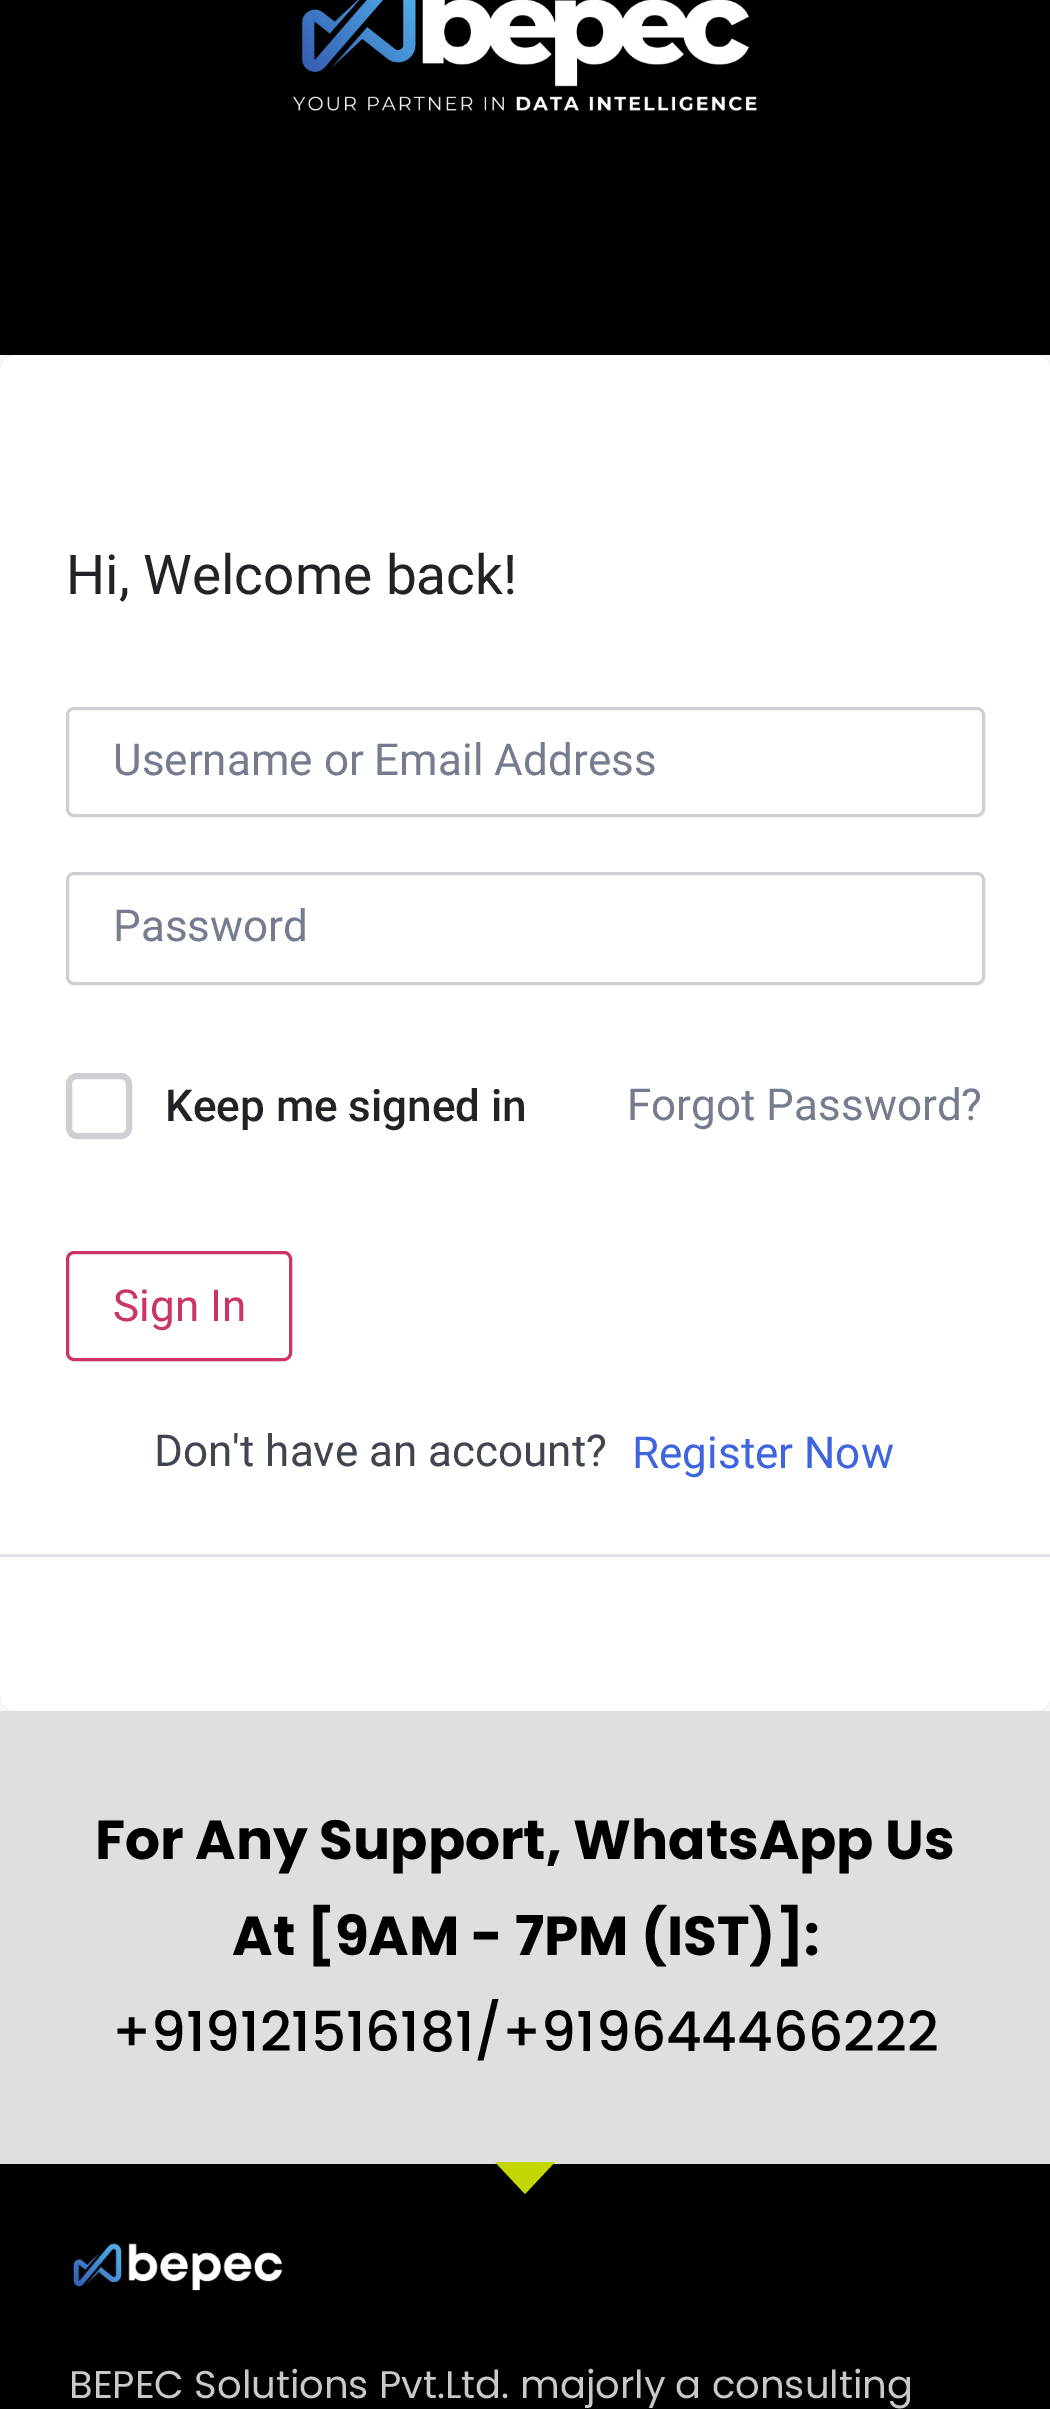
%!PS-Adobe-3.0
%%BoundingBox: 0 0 1050 2409
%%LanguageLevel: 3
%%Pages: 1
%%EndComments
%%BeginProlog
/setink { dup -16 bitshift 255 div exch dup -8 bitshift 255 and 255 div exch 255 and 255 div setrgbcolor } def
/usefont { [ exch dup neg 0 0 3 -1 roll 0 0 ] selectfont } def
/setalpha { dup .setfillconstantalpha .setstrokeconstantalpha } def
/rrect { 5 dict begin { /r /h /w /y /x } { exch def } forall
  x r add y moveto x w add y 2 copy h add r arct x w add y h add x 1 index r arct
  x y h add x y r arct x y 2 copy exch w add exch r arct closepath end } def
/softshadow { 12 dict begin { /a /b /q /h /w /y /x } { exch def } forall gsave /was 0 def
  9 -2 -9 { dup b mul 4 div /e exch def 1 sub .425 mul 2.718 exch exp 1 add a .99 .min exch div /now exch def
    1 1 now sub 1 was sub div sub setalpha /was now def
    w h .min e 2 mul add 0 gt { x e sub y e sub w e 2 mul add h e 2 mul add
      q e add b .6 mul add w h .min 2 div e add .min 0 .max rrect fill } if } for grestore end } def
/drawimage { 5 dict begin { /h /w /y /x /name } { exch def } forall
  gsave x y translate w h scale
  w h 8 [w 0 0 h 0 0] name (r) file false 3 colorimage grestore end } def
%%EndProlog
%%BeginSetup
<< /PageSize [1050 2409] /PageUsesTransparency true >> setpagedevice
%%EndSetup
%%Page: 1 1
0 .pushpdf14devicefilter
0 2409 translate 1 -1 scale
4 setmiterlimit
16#FFFFFF setink
0 0 1050 2409 rectfill
gsave
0 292 moveto 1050 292 lineto 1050 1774 lineto 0 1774 lineto closepath 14 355 moveto 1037 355 lineto 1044.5 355 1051 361.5 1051 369 curveto 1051 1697 lineto 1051 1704.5 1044.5 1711 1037 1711 curveto 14 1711 lineto 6.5 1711 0 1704.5 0 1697 curveto 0 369 lineto 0 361.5 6.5 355 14 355 curveto closepath eoclip newpath
16#000000 setink
0 355 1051 1356 14 20.5 0.1 softshadow
grestore
16#000000 setink
0 0 1050 355 rectfill
(img1.raw) 293 0 464 111 drawimage
/Roboto-Regular 55 usefont
16#212327 setink
66 594 moveto (Hi, Welcome back!) show
16#CDCFD5 setink
3 setlinewidth
67.5 708.5 916 107 6.5 rrect stroke
/Roboto-Regular 44 usefont
16#757C8E setink
113 775 moveto (Username or Email Address) show
16#CDCFD5 setink
67.5 873.5 916 110 6.5 rrect stroke
16#757C8E setink
113 941 moveto (Password) show
16#CDCFD5 setink
6 setlinewidth
69 1076 60 60 8 rrect stroke
/Roboto-Medium 44 usefont
16#212327 setink
165 1121 moveto (Keep me signed in) show
/Roboto-Regular 44 usefont
16#757C8E setink
627 1120 moveto (Forgot Password?) show
16#CC3366 setink
3 setlinewidth
67.5 1252.5 223 107 6.5 rrect stroke
113 1321 moveto (Sign In) show
16#41454F setink
154 1466 moveto (Don't have an account?) show
16#3E64DE setink
632 1468 moveto (Register Now) show
16#E0E2EA setink
0 1554 1050 3 rectfill
16#DFDFDF setink
0 1711 1050 453 rectfill
/Poppins-Bold 55 usefont
16#000000 setink
95 1859 moveto (For Any Support, WhatsApp Us) show
232 1955 moveto (At [9AM - 7PM \(IST\)]:) show
/Poppins-Medium 55 usefont
112 2051 moveto (+919121516181/+919644466222) show
0 2164 1050 245 rectfill
16#C4D602 setink
525 2194 moveto 495 2162 lineto 555 2162 lineto closepath fill
(img2.raw) 73 2243 210 48 drawimage
/Poppins-Regular 38.5 usefont
16#C9C9C9 setink
69 2398 moveto (BEPEC Solutions Pvt.Ltd. majorly a consulting) show
.poppdf14devicefilter showpage
%%EOF
